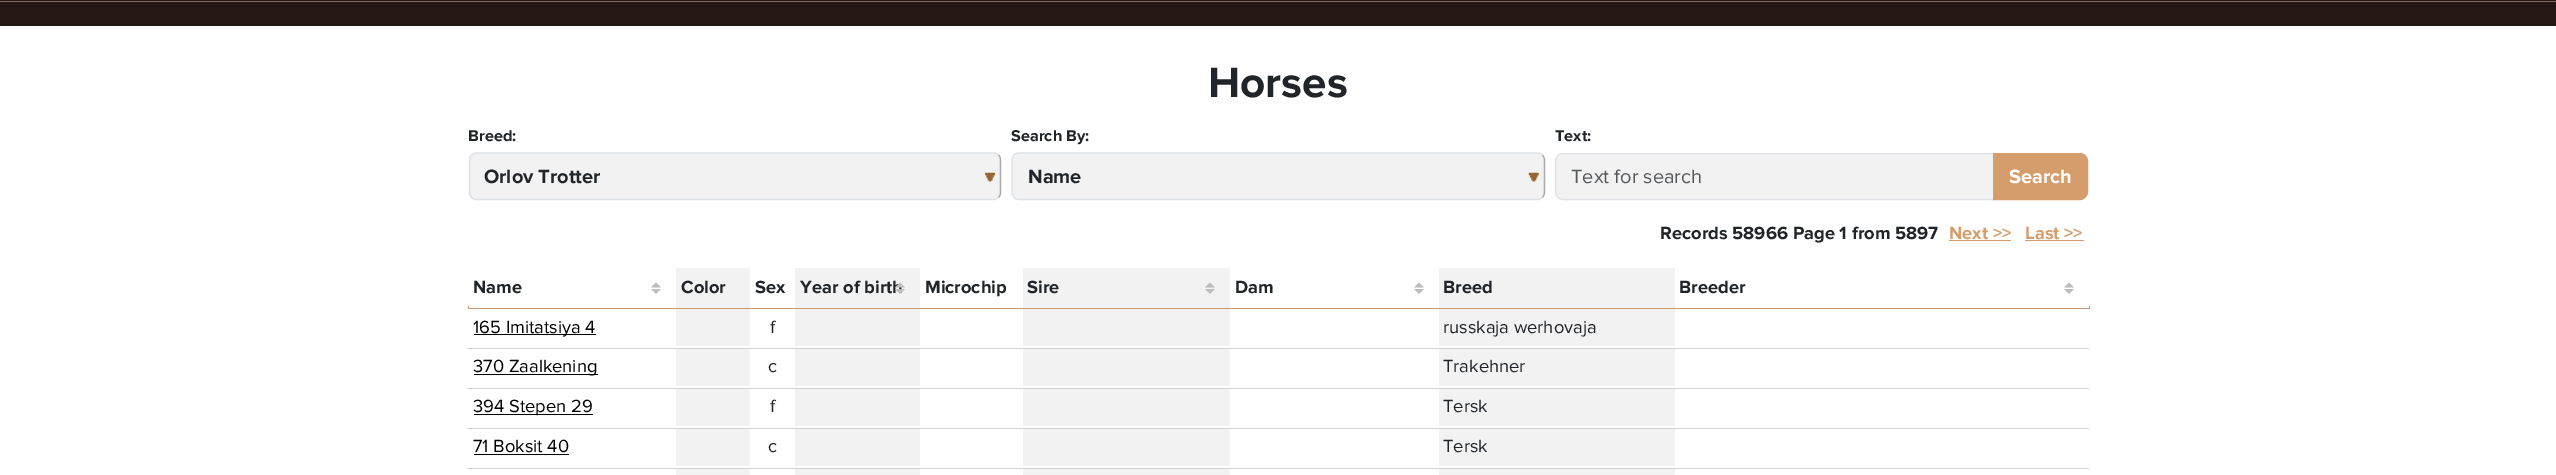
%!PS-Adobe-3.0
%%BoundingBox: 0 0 2556 475
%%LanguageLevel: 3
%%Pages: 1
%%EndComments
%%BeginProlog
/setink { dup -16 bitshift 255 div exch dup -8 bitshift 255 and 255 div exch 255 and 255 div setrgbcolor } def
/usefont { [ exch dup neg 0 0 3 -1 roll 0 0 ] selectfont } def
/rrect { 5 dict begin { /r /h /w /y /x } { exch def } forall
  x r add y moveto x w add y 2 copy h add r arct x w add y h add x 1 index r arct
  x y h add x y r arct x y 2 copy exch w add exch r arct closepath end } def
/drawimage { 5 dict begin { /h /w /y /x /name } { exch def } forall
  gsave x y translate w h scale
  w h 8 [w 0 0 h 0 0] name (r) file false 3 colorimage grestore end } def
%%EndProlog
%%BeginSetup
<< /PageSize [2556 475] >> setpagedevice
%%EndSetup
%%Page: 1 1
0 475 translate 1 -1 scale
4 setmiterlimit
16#FFFFFF setink
0 0 2556 475 rectfill
16#251714 setink
0 0 2556 26 rectfill
16#836E63 setink
0 1 2556 1 rectfill
/ProximaNova-Bold 44 usefont
16#212529 setink
1208 97 moveto (Horses) show
/ProximaNova-Bold 16.25 usefont
468 141 moveto (Breed:) show
16#F2F2F2 setink
470 154 530 45 6 rrect fill
(img1.raw) 984 172 12 10 drawimage
16#AAAAAA setink
1.2 setlinewidth
998.5 155 moveto 1000 156.5 1000.5 158 1000.5 160 curveto 1000.5 192.5 lineto 1000.5 194.5 1000 196 998.5 197.5 curveto stroke
16#DEE2E6 setink
998.5 197.5 moveto 997.5 198.5 995.5 199.5 994 199.5 curveto 476 199.5 lineto 474.5 199.5 472.5 198.5 471.5 197.5 curveto 470 196 469.5 194.5 469.5 192.5 curveto 469.5 160 lineto 469.5 158 470 156.5 471.5 155 curveto 472.5 154 474.5 153 476 153 curveto 994 153 lineto 995.5 153 997.5 154 998.5 155 curveto stroke
/ProximaNova-Bold 20 usefont
16#212529 setink
484 183 moveto (Orlov Trotter) show
/ProximaNova-Bold 16.25 usefont
1011 141 moveto (Search By:) show
16#F2F2F2 setink
1013 154 531 45 6 rrect fill
(img2.raw) 1528 172 11 10 drawimage
16#AAAAAA setink
1542.5 155 moveto 1543.5 156.5 1544.5 158 1544.5 160 curveto 1544.5 192.5 lineto 1544.5 194.5 1543.5 196 1542.5 197.5 curveto stroke
16#DEE2E6 setink
1542.5 197.5 moveto 1541 198.5 1539.5 199.5 1537.5 199.5 curveto 1019 199.5 lineto 1017 199.5 1015 198.5 1014 197.5 curveto 1012.5 196 1012 194.5 1012 192.5 curveto 1012 160 lineto 1012 158 1012.5 156.5 1014 155 curveto 1015 154 1017 153 1019 153 curveto 1537.5 153 lineto 1539.5 153 1541 154 1542.5 155 curveto stroke
/ProximaNova-Bold 20 usefont
16#212529 setink
1028 183 moveto (Name) show
/ProximaNova-Bold 16.25 usefont
1555 141 moveto (Text:) show
16#F2F2F2 setink
1562 154 moveto 1993 154 lineto 1993 199 lineto 1562 199 lineto 1558.5 199 1556 196.5 1556 193 curveto 1556 160 lineto 1556 156.5 1558.5 154 1562 154 curveto closepath fill
16#DEE2E6 setink
1 setlinewidth
1563 153.5 moveto 1993.5 153.5 lineto 1993.5 199.5 lineto 1563 199.5 lineto 1559 199.5 1555.5 196 1555.5 192 curveto 1555.5 161 lineto 1555.5 157 1559 153.5 1563 153.5 curveto closepath stroke
/ProximaNova-Regular 20 usefont
16#55585B setink
1571 183 moveto (Text for search) show
16#D59D6B setink
1993.5 153.5 moveto 2080 153.5 lineto 2084 153.5 2087.5 157 2087.5 161 curveto 2087.5 192 lineto 2087.5 196 2084 199.5 2080 199.5 curveto 1993.5 199.5 lineto closepath gsave fill grestore
stroke
/ProximaNova-Bold 20 usefont
16#FFFFFF setink
2009 183 moveto (Search) show
/ProximaNova-Bold 18.3 usefont
16#212529 setink
1660 239 moveto (Records 58966 Page 1 from 5897) show
16#D59D6B setink
1949 239 moveto (Next >>) show
1949 240 62 1 rectfill
2025 239 moveto (Last >>) show
[
    [2025 240 59 1 16#D59D6B]
    [1674 306 416 3 16#C69B72]
    [675 308 1001 1 16#C69B72]
    [468 306 210 3 16#C69B72]
    [469 306 207 2 16#FFFFFF]
] { aload pop setink rectfill } forall
16#212529 setink
473 293 moveto (Name) show
16#BDBDBD setink
661 287.5 moveto 651 287.5 lineto 656 282.5 lineto closepath 651 289 moveto 661 289 lineto 656 294 lineto closepath fill
16#F2F2F2 setink
676 268 74 40 rectfill
16#212529 setink
681 293 moveto (Color) show
755 293 moveto (Sex) show
16#F2F2F2 setink
795 268 125 40 rectfill
16#212529 setink
800 293 moveto (Year of birth) show
16#BDBDBD setink
905 287.5 moveto 895 287.5 lineto 900 282.5 lineto closepath 895 289 moveto 905 289 lineto 900 294 lineto closepath fill
16#212529 setink
925 293 moveto (Microchip) show
16#F2F2F2 setink
1023 268 207 40 rectfill
16#212529 setink
1027 293 moveto (Sire) show
16#BDBDBD setink
1215 287.5 moveto 1205 287.5 lineto 1210 282.5 lineto closepath 1205 289 moveto 1215 289 lineto 1210 294 lineto closepath fill
16#212529 setink
1235 293 moveto (Dam) show
16#BDBDBD setink
1424 287.5 moveto 1414 287.5 lineto 1419 282.5 lineto closepath 1414 289 moveto 1424 289 lineto 1419 294 lineto closepath fill
16#F2F2F2 setink
1439 268 236 40 rectfill
16#212529 setink
1443 293 moveto (Breed) show
16#FFFFFF setink
1675 306 414 2 rectfill
16#212529 setink
1679 293 moveto (Breeder) show
16#BDBDBD setink
2074 287.5 moveto 2064 287.5 lineto 2069 282.5 lineto closepath 2064 289 moveto 2074 289 lineto 2069 294 lineto closepath fill
16#000000 setink
474 334 122 1 rectfill
/ProximaNova-Regular 18.3 usefont
473 333 moveto (165 Imitatsiya 4) show
16#F2F2F2 setink
676 309 74 37 rectfill
16#212529 setink
770 333 moveto (f) show
[
    [795 309 125 37 16#F2F2F2]
    [1023 309 207 37 16#F2F2F2]
    [1439 309 236 37 16#F2F2F2]
] { aload pop setink rectfill } forall
16#212529 setink
1443 333 moveto (russkaja werhovaja) show
16#D3D3D3 setink
468 348 1621 1 rectfill
16#000000 setink
474 374 124 1 rectfill
473 372 moveto (370 Zaalkening) show
16#F2F2F2 setink
676 349 74 37 rectfill
16#212529 setink
768 372 moveto (c) show
[
    [795 349 125 37 16#F2F2F2]
    [1023 349 207 37 16#F2F2F2]
    [1439 349 236 37 16#F2F2F2]
] { aload pop setink rectfill } forall
16#212529 setink
1443 372 moveto (Trakehner) show
16#D3D3D3 setink
468 388 1621 1 rectfill
16#000000 setink
474 414 119 1 rectfill
473 412 moveto (394 Stepen 29) show
16#F2F2F2 setink
676 389 74 37 rectfill
16#212529 setink
770 412 moveto (f) show
[
    [795 389 125 37 16#F2F2F2]
    [1023 389 207 37 16#F2F2F2]
    [1439 389 236 37 16#F2F2F2]
] { aload pop setink rectfill } forall
16#212529 setink
1443 412 moveto (Tersk) show
16#D3D3D3 setink
468 428 1621 1 rectfill
16#000000 setink
473 452 moveto (71 Boksit 40) show
474 454 95 1 rectfill
16#F2F2F2 setink
676 429 74 37 rectfill
16#212529 setink
768 452 moveto (c) show
[
    [795 429 125 37 16#F2F2F2]
    [1023 429 207 37 16#F2F2F2]
    [1439 429 236 37 16#F2F2F2]
] { aload pop setink rectfill } forall
16#212529 setink
1443 452 moveto (Tersk) show
[
    [468 468 1621 1 16#D3D3D3]
    [676 469 74 6 16#F2F2F2]
    [795 469 125 6 16#F2F2F2]
    [1023 469 207 6 16#F2F2F2]
    [1439 469 236 6 16#F2F2F2]
] { aload pop setink rectfill } forall
showpage
%%EOF
